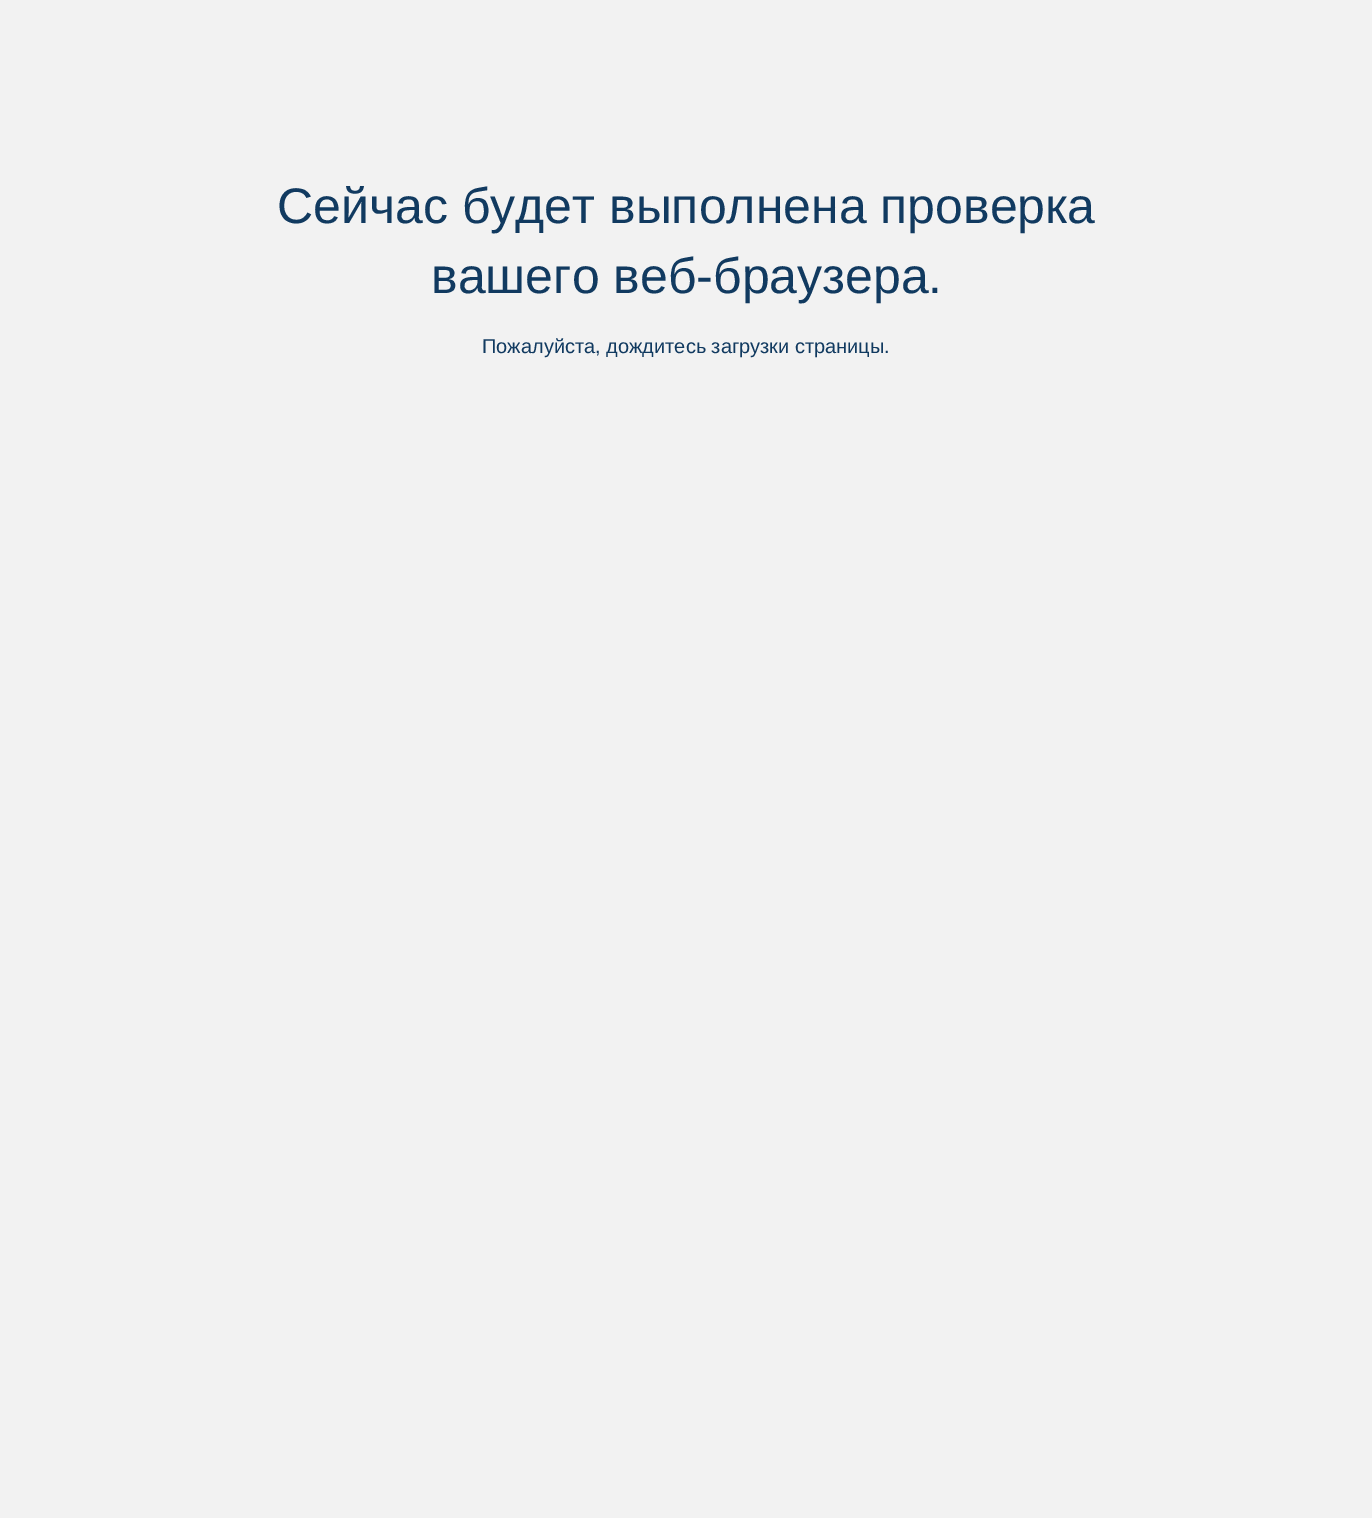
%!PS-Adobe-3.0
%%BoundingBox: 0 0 1372 1518
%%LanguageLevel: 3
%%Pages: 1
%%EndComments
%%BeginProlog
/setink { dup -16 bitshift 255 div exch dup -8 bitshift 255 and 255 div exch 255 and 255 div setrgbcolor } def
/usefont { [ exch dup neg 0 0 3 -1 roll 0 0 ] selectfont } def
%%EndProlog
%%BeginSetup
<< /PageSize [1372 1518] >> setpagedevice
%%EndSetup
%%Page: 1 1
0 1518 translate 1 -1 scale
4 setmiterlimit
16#F2F2F2 setink
0 0 1372 1518 rectfill
/LiberationSans-Regular 50 usefont
16#113A60 setink
277 223 moveto (Сейчас будет выполнена проверка) show
431 293 moveto (вашего веб-браузера.) show
/LiberationSans-Regular 20 usefont
482 353 moveto (Пожалуйста, дождитесь загрузки страницы.) show
showpage
%%EOF
